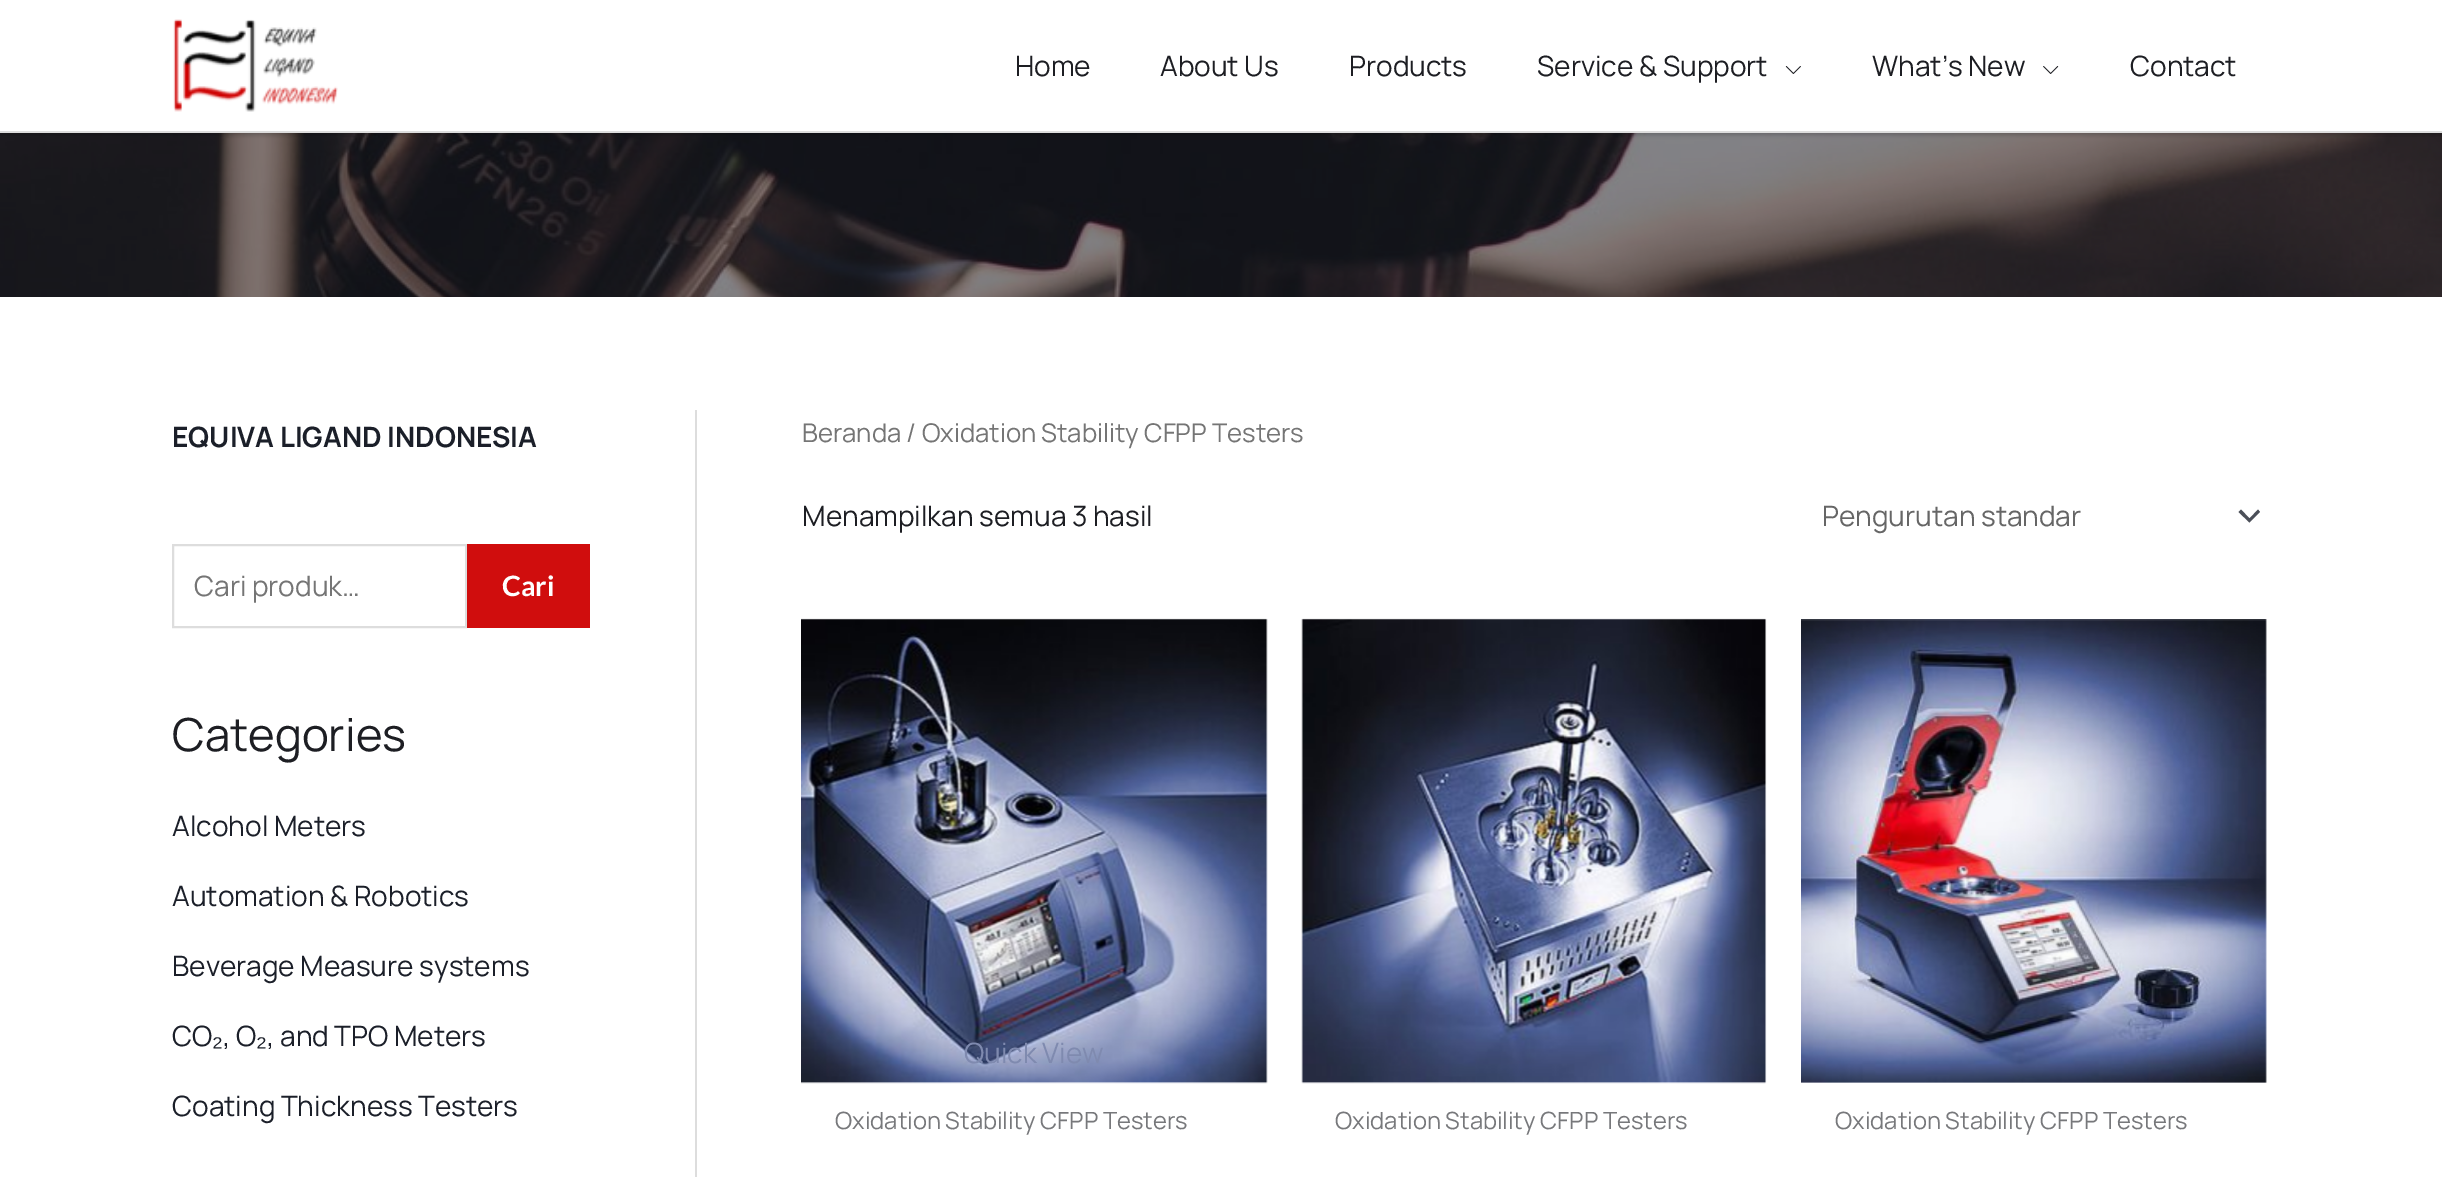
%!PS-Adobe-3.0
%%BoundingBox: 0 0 2442 1177
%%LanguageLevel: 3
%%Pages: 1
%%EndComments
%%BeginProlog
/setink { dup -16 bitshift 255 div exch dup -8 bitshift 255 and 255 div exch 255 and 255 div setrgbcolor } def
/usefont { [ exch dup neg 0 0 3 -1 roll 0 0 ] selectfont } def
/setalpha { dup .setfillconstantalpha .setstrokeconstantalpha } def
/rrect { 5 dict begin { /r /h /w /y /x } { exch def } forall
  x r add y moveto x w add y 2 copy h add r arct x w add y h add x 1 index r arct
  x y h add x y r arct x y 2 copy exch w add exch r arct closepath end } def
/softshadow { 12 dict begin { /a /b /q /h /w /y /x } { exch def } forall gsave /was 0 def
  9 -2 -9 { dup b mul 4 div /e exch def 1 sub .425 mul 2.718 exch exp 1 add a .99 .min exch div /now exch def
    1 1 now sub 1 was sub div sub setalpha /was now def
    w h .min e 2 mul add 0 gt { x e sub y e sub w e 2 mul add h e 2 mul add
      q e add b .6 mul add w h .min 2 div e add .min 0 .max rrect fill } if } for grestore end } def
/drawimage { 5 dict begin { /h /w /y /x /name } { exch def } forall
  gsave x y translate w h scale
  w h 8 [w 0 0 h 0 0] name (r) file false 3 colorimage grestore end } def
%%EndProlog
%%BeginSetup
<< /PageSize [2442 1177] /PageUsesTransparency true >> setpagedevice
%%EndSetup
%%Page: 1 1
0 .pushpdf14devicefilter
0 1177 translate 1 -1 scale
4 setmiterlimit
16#FFFFFF setink
0 0 2442 1177 rectfill
(img4.raw) 0 133 2442 164 drawimage
16#000000 setink
0 2 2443 133 0 2 0.2 softshadow
16#FFFFFF setink
0 0 2442 131 rectfill
16#DDDDDD setink
0 131 2442 2 rectfill
(img1.raw) 173 19 165 93 drawimage
/Manrope-Regular 28 usefont
16#1D1E23 setink
[
    [(Home) 1015 76]
    [(About Us) 1160 76]
    [(Products) 1349 76]
    [(Service & Support) 1537 76]
] { aload pop moveto show } forall
(img2.raw) 1785 66 16 8 drawimage
1872 76 moveto (What’s New) show
(img3.raw) 2043 66 16 8 drawimage
2130 76 moveto (Contact) show
16#DDDDDD setink
695 410 2 767 rectfill
/Manrope-Bold 28 usefont
16#1B1F29 setink
172 447 moveto (EQUIVA LIGAND INDONESIA) show
16#DDDDDD setink
2 setlinewidth
173 545 293 82 rectstroke
/Manrope-Regular 28 usefont
16#757575 setink
194 596 moveto (Cari produk…) show
16#D00D0D setink
467 544 123 84 rectfill
/Lato-Bold 28 usefont
16#FFFFFF setink
502 596 moveto (Cari) show
/Manrope-Regular 45.5 usefont
16#1D1E23 setink
172 751 moveto (Categories) show
/Manrope-Regular 28 usefont
16#1B1F29 setink
[
    [(Alcohol Meters) 172 836]
    [(Automation & Robotics) 172 906]
    [(Beverage Measure systems) 172 976]
    [(CO) 172 1046]
] { aload pop moveto show } forall
/LiberationSans-Regular 28 usefont
212 1046 moveto (₂) show
/Manrope-Regular 28 usefont
223 1046 moveto (, O) show
/LiberationSans-Regular 28 usefont
256 1046 moveto (₂) show
/Manrope-Regular 28 usefont
267 1046 moveto (, and TPO Meters) show
172 1116 moveto (Coating Thickness Testers) show
/Manrope-Regular 25.75 usefont
16#757575 setink
802 442 moveto (Beranda / Oxidation Stability CFPP Testers) show
/Manrope-Regular 28 usefont
16#1D1E23 setink
802 526 moveto (Menampilkan semua 3 hasil) show
16#4B4F58 setink
2238.5 512 moveto 2249.5 522.5 lineto 2260 512 lineto 2258 509.5 lineto 2249.5 518.5 lineto 2241 509.5 lineto closepath fill
16#666666 setink
1822 526 moveto (Pengurutan standar) show
(img5.raw) 801 618 467 466 drawimage
16#7F8AAF setink
964 1063 moveto (Quick View) show
/Manrope-Regular 23.75 usefont
16#77787B setink
835 1129 moveto (Oxidation Stability CFPP Testers) show
(img6.raw) 1301 618 466 466 drawimage
1335 1129 moveto (Oxidation Stability CFPP Testers) show
(img7.raw) 1801 619 466 464 drawimage
1835 1129 moveto (Oxidation Stability CFPP Testers) show
.poppdf14devicefilter showpage
%%EOF
